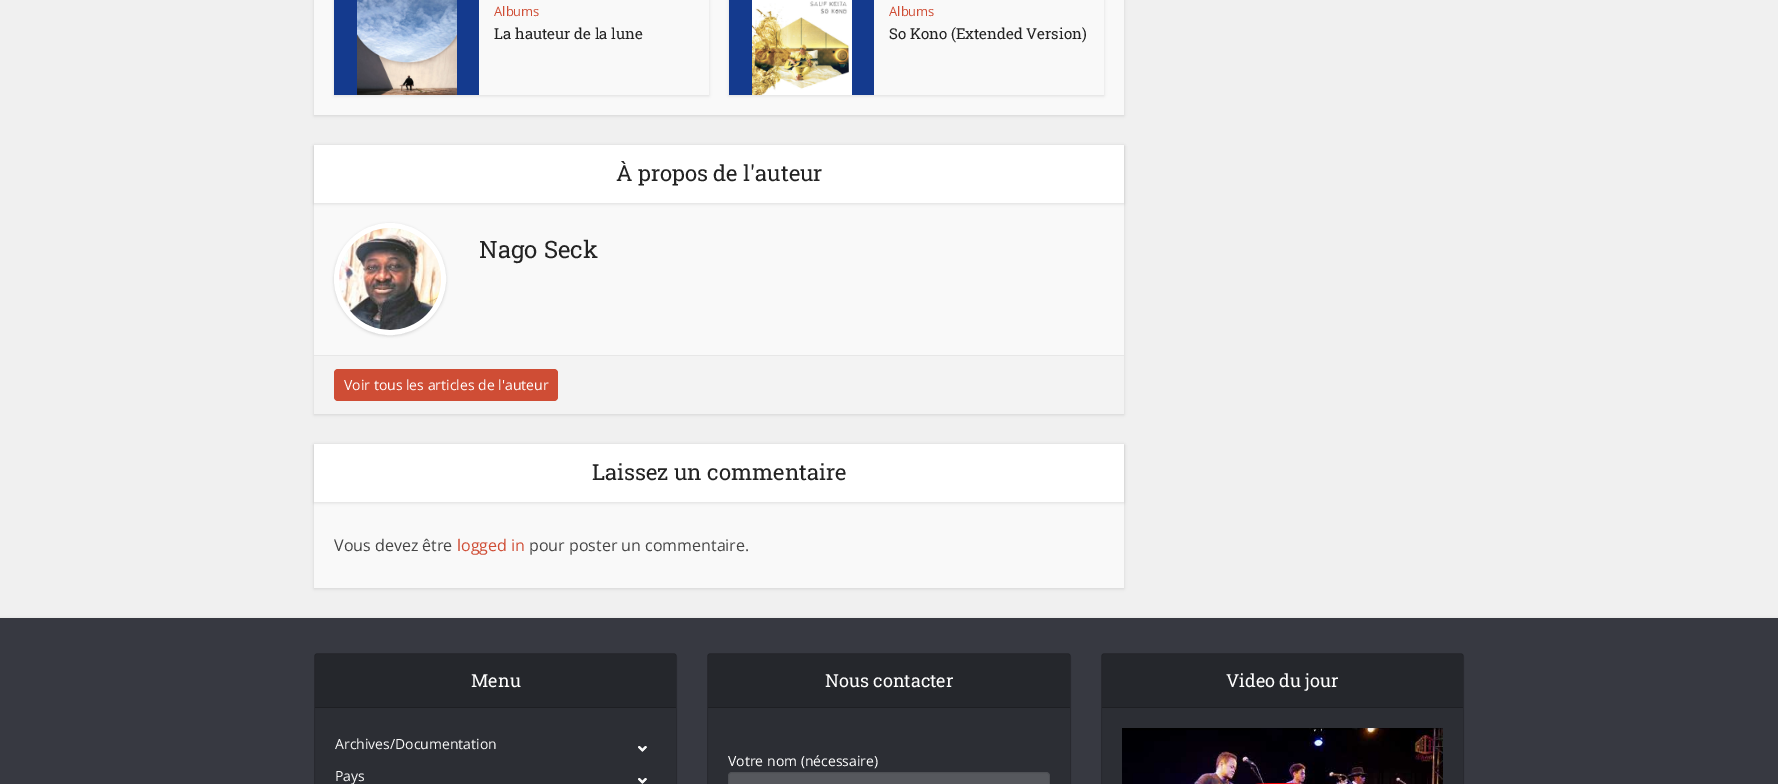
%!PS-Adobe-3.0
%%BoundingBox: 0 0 1778 784
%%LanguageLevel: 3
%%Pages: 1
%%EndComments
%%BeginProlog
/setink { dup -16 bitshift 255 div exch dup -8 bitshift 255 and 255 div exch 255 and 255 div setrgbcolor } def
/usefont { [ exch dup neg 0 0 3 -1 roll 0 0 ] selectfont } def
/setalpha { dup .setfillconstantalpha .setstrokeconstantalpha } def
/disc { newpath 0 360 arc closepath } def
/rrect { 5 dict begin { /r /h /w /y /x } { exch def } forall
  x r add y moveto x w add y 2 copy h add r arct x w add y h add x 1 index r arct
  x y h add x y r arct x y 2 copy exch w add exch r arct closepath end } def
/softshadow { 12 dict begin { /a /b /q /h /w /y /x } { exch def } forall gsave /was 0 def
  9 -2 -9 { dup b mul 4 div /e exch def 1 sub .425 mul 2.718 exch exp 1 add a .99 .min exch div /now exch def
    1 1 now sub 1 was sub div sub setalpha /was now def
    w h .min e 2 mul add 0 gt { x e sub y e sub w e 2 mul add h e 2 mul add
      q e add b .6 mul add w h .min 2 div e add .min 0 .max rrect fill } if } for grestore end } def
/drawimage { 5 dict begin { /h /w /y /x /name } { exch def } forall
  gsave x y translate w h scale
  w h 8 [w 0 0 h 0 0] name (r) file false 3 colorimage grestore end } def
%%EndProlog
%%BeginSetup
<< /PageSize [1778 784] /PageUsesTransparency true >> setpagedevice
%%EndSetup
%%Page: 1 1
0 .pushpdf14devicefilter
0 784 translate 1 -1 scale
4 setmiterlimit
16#F0F0F0 setink
0 0 1778 784 rectfill
16#000000 setink
314 -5 810 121 0 1.5 0.1 softshadow
16#F9F9F9 setink
314 0 810 115 rectfill
gsave
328 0 moveto 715 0 lineto 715 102 lineto 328 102 lineto closepath 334 -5 moveto 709 -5 lineto 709 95 lineto 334 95 lineto closepath eoclip newpath
16#000000 setink
334 -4 375 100 0 1.5 0.1 softshadow
grestore
16#143A8E setink
334 0 145 95 rectfill
(img1.raw) 357 0 100 95 drawimage
/OpenSans-Regular 13 usefont
16#CF4D35 setink
494 16 moveto (Albums) show
/RobotoSlab-Regular 15 usefont
16#232323 setink
494 39 moveto (La hauteur de la lune) show
gsave
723 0 moveto 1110 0 lineto 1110 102 lineto 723 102 lineto closepath 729 -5 moveto 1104 -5 lineto 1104 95 lineto 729 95 lineto closepath eoclip newpath
16#000000 setink
729 -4 375 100 0 1.5 0.1 softshadow
grestore
16#143A8E setink
729 0 145 95 rectfill
(img2.raw) 752 0 100 95 drawimage
/OpenSans-Regular 13 usefont
16#CF4D35 setink
889 16 moveto (Albums) show
/RobotoSlab-Regular 15 usefont
16#232323 setink
889 39 moveto (So Kono \(Extended Version\)) show
16#000000 setink
314 146 810 269 0 1.5 0.1 softshadow
16#F9F9F9 setink
314 203 810 152 rectfill
16#000000 setink
314 146 810 58 0 1.5 0.1 softshadow
16#FFFFFF setink
314 145 810 58 rectfill
/RobotoSlab-Regular 22 usefont
16#232323 setink
616 181 moveto (À propos de l'auteur) show
16#000000 setink
334 224 112 112 56 1.5 0.15 softshadow
16#FFFFFF setink
5 setlinewidth
390 279 53.5 disc stroke
(img3.raw) 339 228 102 102 drawimage
/RobotoSlab-Regular 24 usefont
16#232323 setink
479 258 moveto (Nago Seck) show
16#F3F3F3 setink
314 356 810 58 rectfill
16#E7E7E7 setink
314 355 810 1 rectfill
16#CF4D35 setink
334 369 224 32 4 rrect fill
/OpenSans-Regular 14 usefont
16#FFFFFF setink
344 390 moveto (Voir tous les articles de l'auteur) show
16#000000 setink
314 445 810 144 0 1.5 0.1 softshadow
16#F9F9F9 setink
314 502 810 86 rectfill
16#000000 setink
314 445 810 58 0 1.5 0.1 softshadow
16#FFFFFF setink
314 444 810 58 rectfill
/RobotoSlab-Regular 22 usefont
16#232323 setink
592 480 moveto (Laissez un commentaire) show
/OpenSans-Regular 16 usefont
16#444444 setink
334 551 moveto (Vous devez être) show
16#CF4D35 setink
457 551 moveto (logged in) show
16#444444 setink
529 551 moveto (pour poster un commentaire.) show
16#000000 setink
0 620 1778 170 0 2 0.2 softshadow
16#373941 setink
0 618 1778 166 rectfill
16#2C2E34 setink
314 653 363 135 4 rrect fill
0.1 setalpha
16#000000 setink
1 setlinewidth
314.5 653.5 362 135 3.5 rrect stroke
0.15 setalpha
315 654 361 53 rectfill
1 setalpha
16#1E1F23 setink
315 707 361 1 rectfill
/RobotoSlab-Regular 18 usefont
16#FFFFFF setink
471 687 moveto (Menu) show
/OpenSans-Regular 14 usefont
16#F9F9F9 setink
335 749 moveto (Archives/Documentation) show
(img4.raw) 638 746 9 6 drawimage
(img5.raw) 638 746 9 6 drawimage
335 781 moveto (Pays) show
(img4.raw) 638 778 9 6 drawimage
(img5.raw) 638 778 9 6 drawimage
16#2C2E34 setink
707 653 364 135 4 rrect fill
0.1 setalpha
16#000000 setink
707.5 653.5 363 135 3.5 rrect stroke
0.15 setalpha
708 654 362 53 rectfill
1 setalpha
16#1E1F23 setink
708 707 362 1 rectfill
/RobotoSlab-Regular 18 usefont
16#FFFFFF setink
825 687 moveto (Nous contacter) show
/OpenSans-Regular 14 usefont
728 766 moveto (Votre nom \(nécessaire\)) show
16#56585D setink
728 772 322 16 4 rrect fill
0.1 setalpha
16#000000 setink
728.5 772.5 321 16 3.5 rrect stroke
1 setalpha
16#2C2E34 setink
1101 653 363 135 4 rrect fill
0.1 setalpha
16#000000 setink
1101.5 653.5 362 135 3.5 rrect stroke
0.15 setalpha
1102 654 361 53 rectfill
1 setalpha
16#1E1F23 setink
1102 707 361 1 rectfill
/RobotoSlab-Regular 18 usefont
16#FFFFFF setink
1226 687 moveto (Video du jour) show
(img6.raw) 1122 728 321 56 drawimage
(img7.raw) 1255 783 46 1 drawimage
.poppdf14devicefilter showpage
%%EOF
